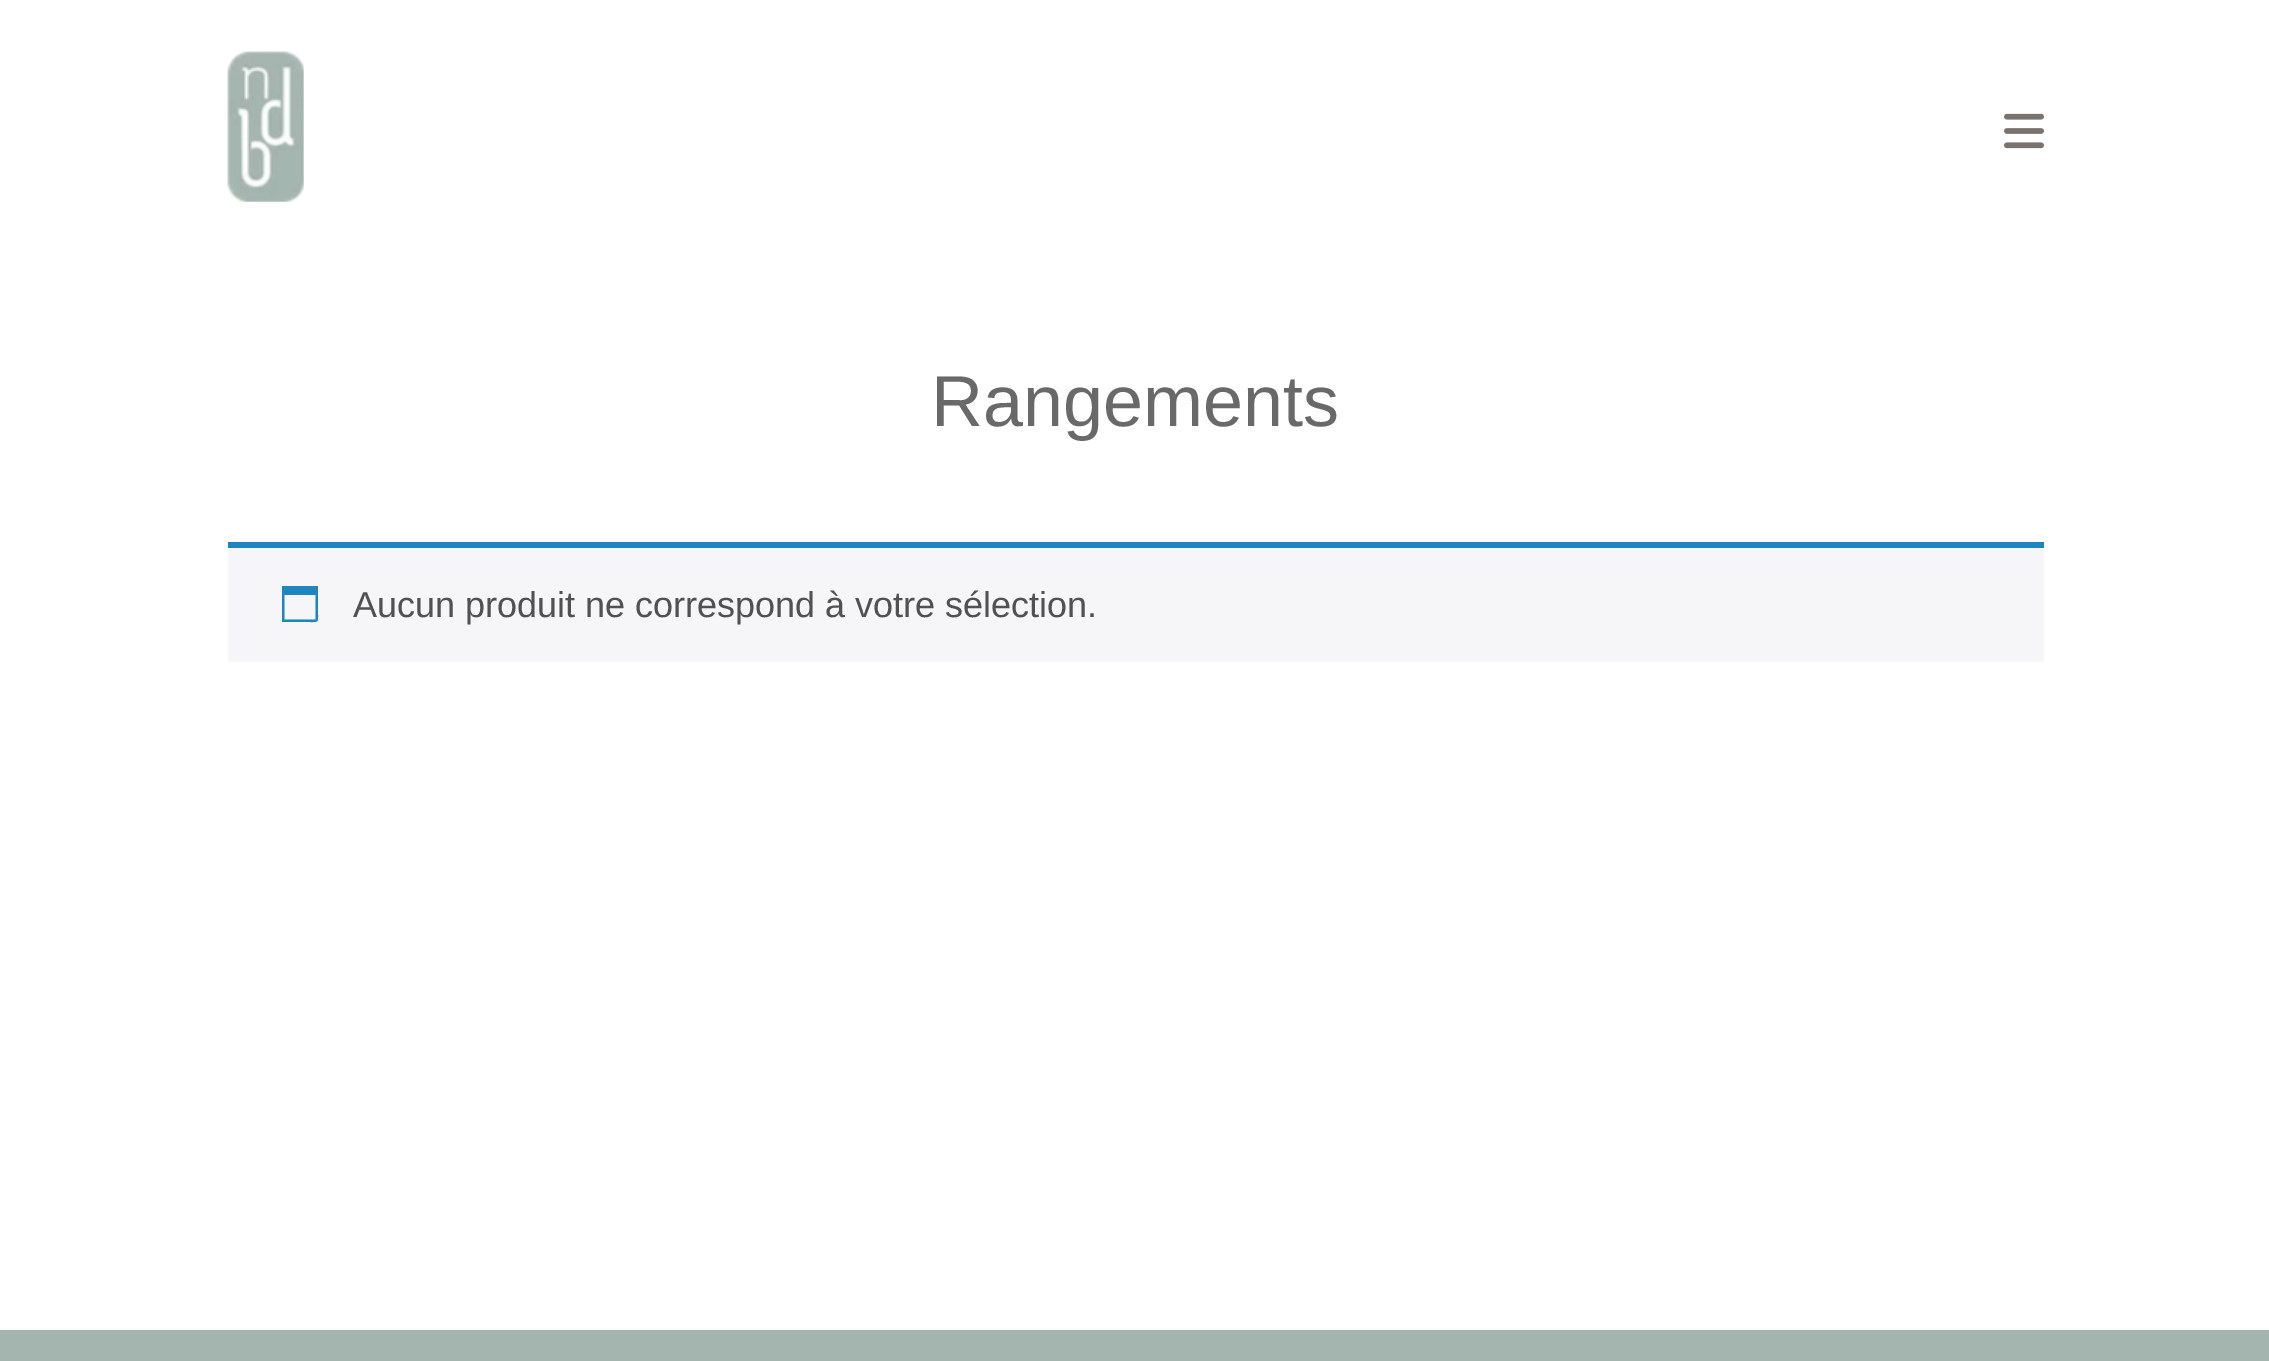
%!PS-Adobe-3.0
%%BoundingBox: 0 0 2269 1361
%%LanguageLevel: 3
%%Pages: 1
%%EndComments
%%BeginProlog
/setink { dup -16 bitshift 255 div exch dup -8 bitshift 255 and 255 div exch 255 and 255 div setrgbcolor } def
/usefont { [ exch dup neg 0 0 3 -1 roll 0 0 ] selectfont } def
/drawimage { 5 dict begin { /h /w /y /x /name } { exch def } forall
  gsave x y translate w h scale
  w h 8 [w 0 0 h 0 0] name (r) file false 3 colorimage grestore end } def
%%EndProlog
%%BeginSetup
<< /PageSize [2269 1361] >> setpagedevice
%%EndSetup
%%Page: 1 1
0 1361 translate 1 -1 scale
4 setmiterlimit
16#FFFFFF setink
0 0 2269 1361 rectfill
(img1.raw) 227 51 77 151 drawimage
(img2.raw) 2004 113 40 36 drawimage
/LiberationSans-Regular 72 usefont
16#696969 setink
931 426 moveto (Rangements) show
16#F6F5F8 setink
228 548 1816 114 rectfill
16#1E85BE setink
228 542 1816 6 rectfill
315.5 595 moveto 284.5 595 lineto 284.5 619.5 lineto 315.5 619.5 lineto closepath 318 586 moveto 318 614 lineto 318 622.5 318.5 622 310 622 curveto 282 622 lineto 282 586 lineto closepath fill
/LiberationSans-Regular 36 usefont
16#515151 setink
353 617 moveto (Aucun produit ne correspond à votre sélection.) show
16#A4B5AF setink
0 1330 2269 31 rectfill
showpage
%%EOF
